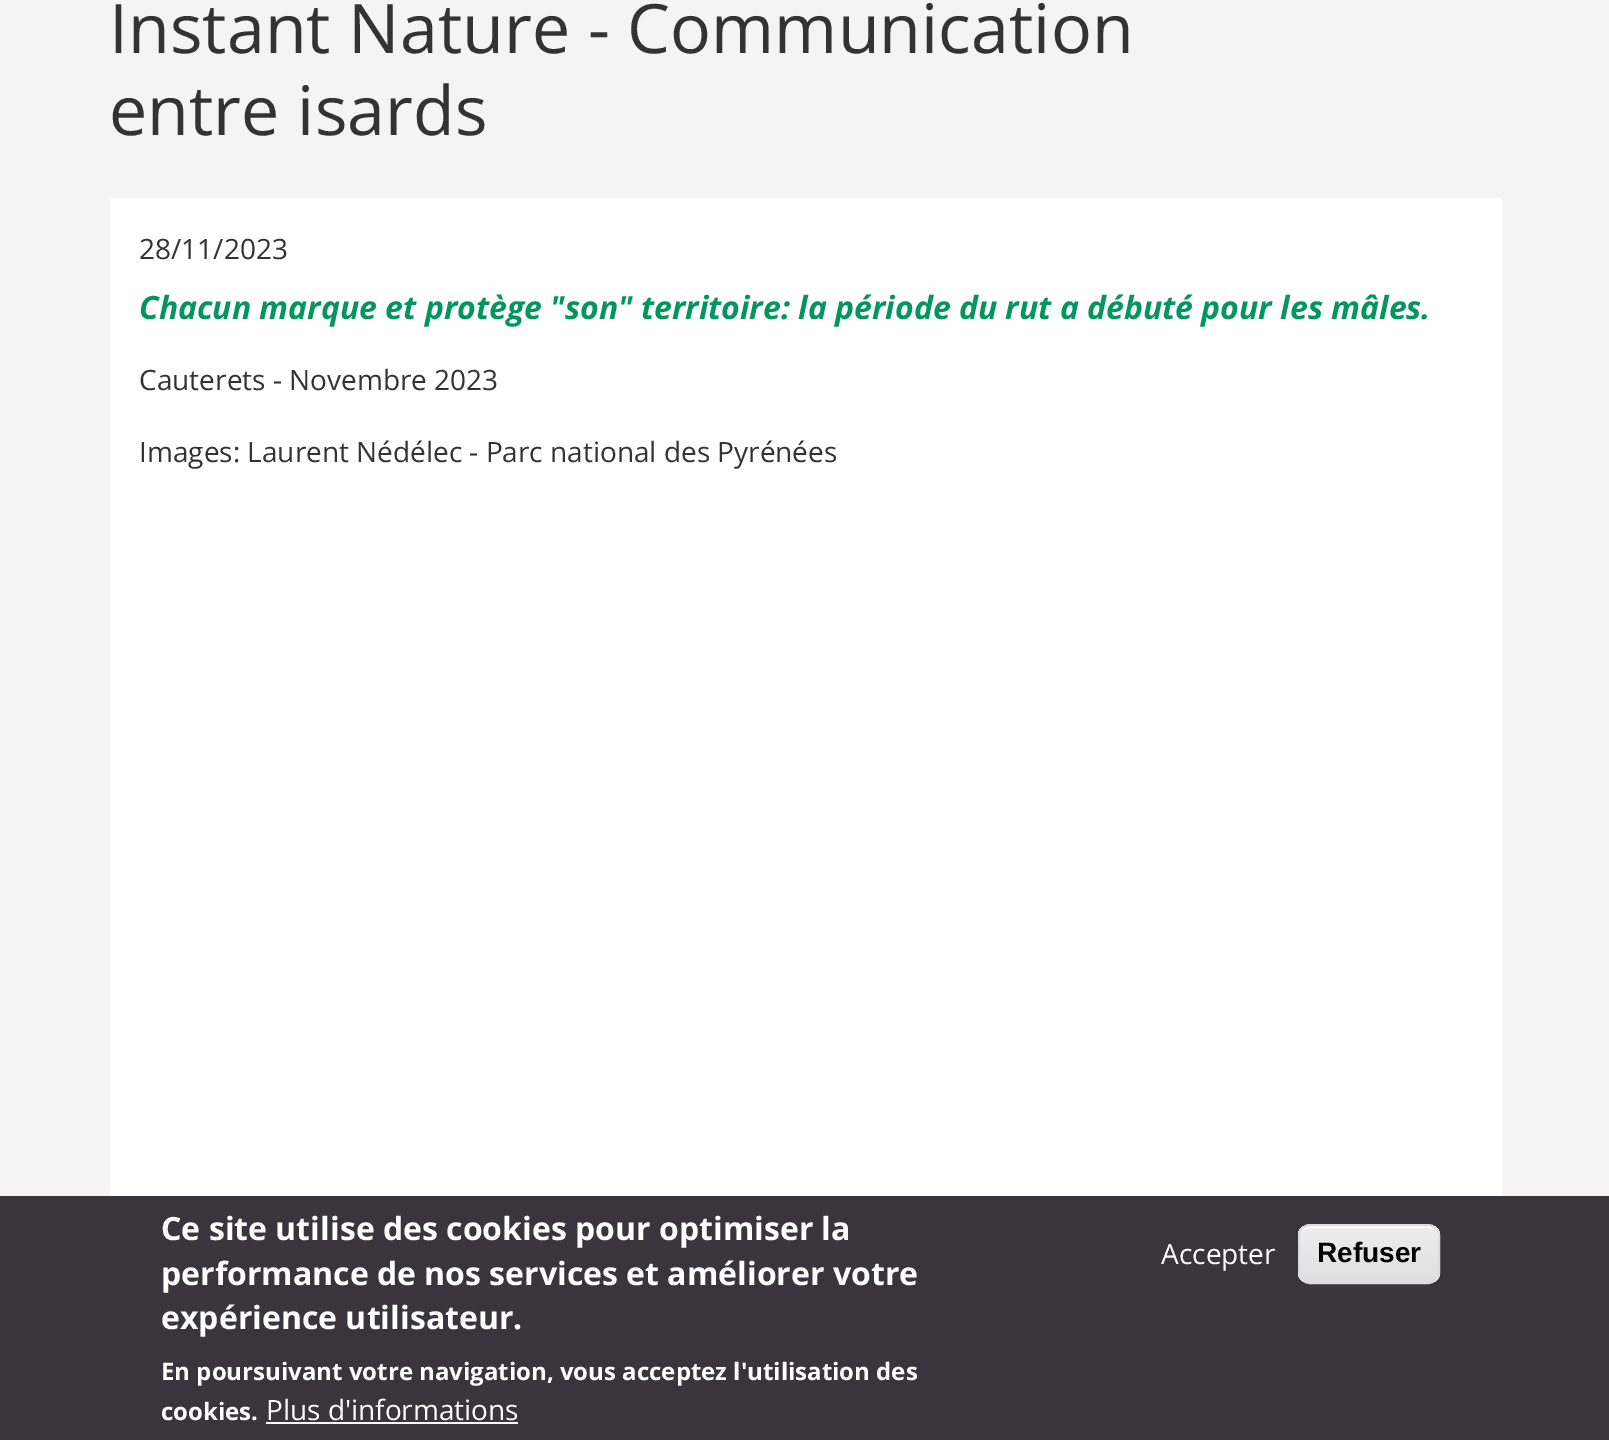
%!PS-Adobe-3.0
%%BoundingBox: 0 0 1609 1440
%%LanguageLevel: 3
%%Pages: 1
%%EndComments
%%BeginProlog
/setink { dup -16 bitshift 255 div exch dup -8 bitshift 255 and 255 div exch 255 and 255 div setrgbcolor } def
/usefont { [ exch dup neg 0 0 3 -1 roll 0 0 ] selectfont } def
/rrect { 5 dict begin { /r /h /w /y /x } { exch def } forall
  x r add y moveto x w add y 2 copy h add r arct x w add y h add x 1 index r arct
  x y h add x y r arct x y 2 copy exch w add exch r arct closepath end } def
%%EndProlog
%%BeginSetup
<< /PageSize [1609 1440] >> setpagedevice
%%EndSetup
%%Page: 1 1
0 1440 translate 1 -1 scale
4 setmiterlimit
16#F4F4F4 setink
0 0 1609 1440 rectfill
/OpenSans-Regular 68.2 usefont
16#333333 setink
109 53 moveto (Instant Nature - Communication) show
109 135 moveto (entre isards) show
16#FFFFFF setink
110 198 1392 998 rectfill
/OpenSans-Regular 28 usefont
16#333333 setink
139 259 moveto (28/11/2023) show
/OpenSans-BoldItalic 32 usefont
16#00965E setink
139 319 moveto (Chacun marque et protège "son" territoire: la période du rut a débuté pour les mâles.) show
/OpenSans-Regular 28 usefont
16#333333 setink
139 390 moveto (Cauterets - Novembre 2023) show
139 462 moveto (Images: Laurent Nédélec - Parc national des Pyrénées) show
16#3A353C setink
0 1196 1609 244 rectfill
/OpenSans-Bold 32 usefont
16#FFFFFF setink
[
    [(Ce site utilise des cookies pour optimiser la) 161 1240]
    [(performance de nos services et améliorer votre) 161 1285]
    [(expérience utilisateur.) 161 1329]
] { aload pop moveto show } forall
/OpenSans-Bold 24 usefont
161 1380 moveto (En poursuivant votre navigation, vous acceptez l'utilisation des) show
161 1420 moveto (cookies.) show
/OpenSans-Regular 28 usefont
266 1420 moveto (Plus d'informations) show
266 1422 252 2 rectfill
1161 1264 moveto (Accepter) show
gsave
1298 1224 142 60 12 rrect clip newpath
gsave 1298 1226 moveto 1440 1226 lineto 1440 1282 lineto 1298 1282 lineto closepath clip newpath
<< /ShadingType 2 /ColorSpace /DeviceRGB /Coords [1369 1226 1369 1282] /Extend [true true] /Function << /FunctionType 3 /Domain [0 1] /Functions [<< /FunctionType 2 /Domain [0 1] /C0 [0.929 0.929 0.929] /C1 [0.929 0.929 0.929] /N 1 >> << /FunctionType 2 /Domain [0 1] /C0 [0.929 0.929 0.929] /C1 [0.875 0.875 0.875] /N 1 >>] /Bounds [0.05] /Encode [0 1 0 1] >> >> shfill grestore
grestore
1310 1228 moveto 1428 1228 lineto 1434 1228 1438 1232 1438 1238 curveto 1438 1221 1420 1226 1408 1226 curveto 1330 1226 lineto 1318 1226 1300 1221 1300 1238 curveto 1300 1232 1304 1228 1310 1228 curveto closepath fill
16#DCDCDC setink
2 setlinewidth
1299 1225 140 58 11 rrect stroke
/LiberationSans-Bold 28 usefont
16#000000 setink
1317 1262 moveto (Refuser) show
showpage
%%EOF
